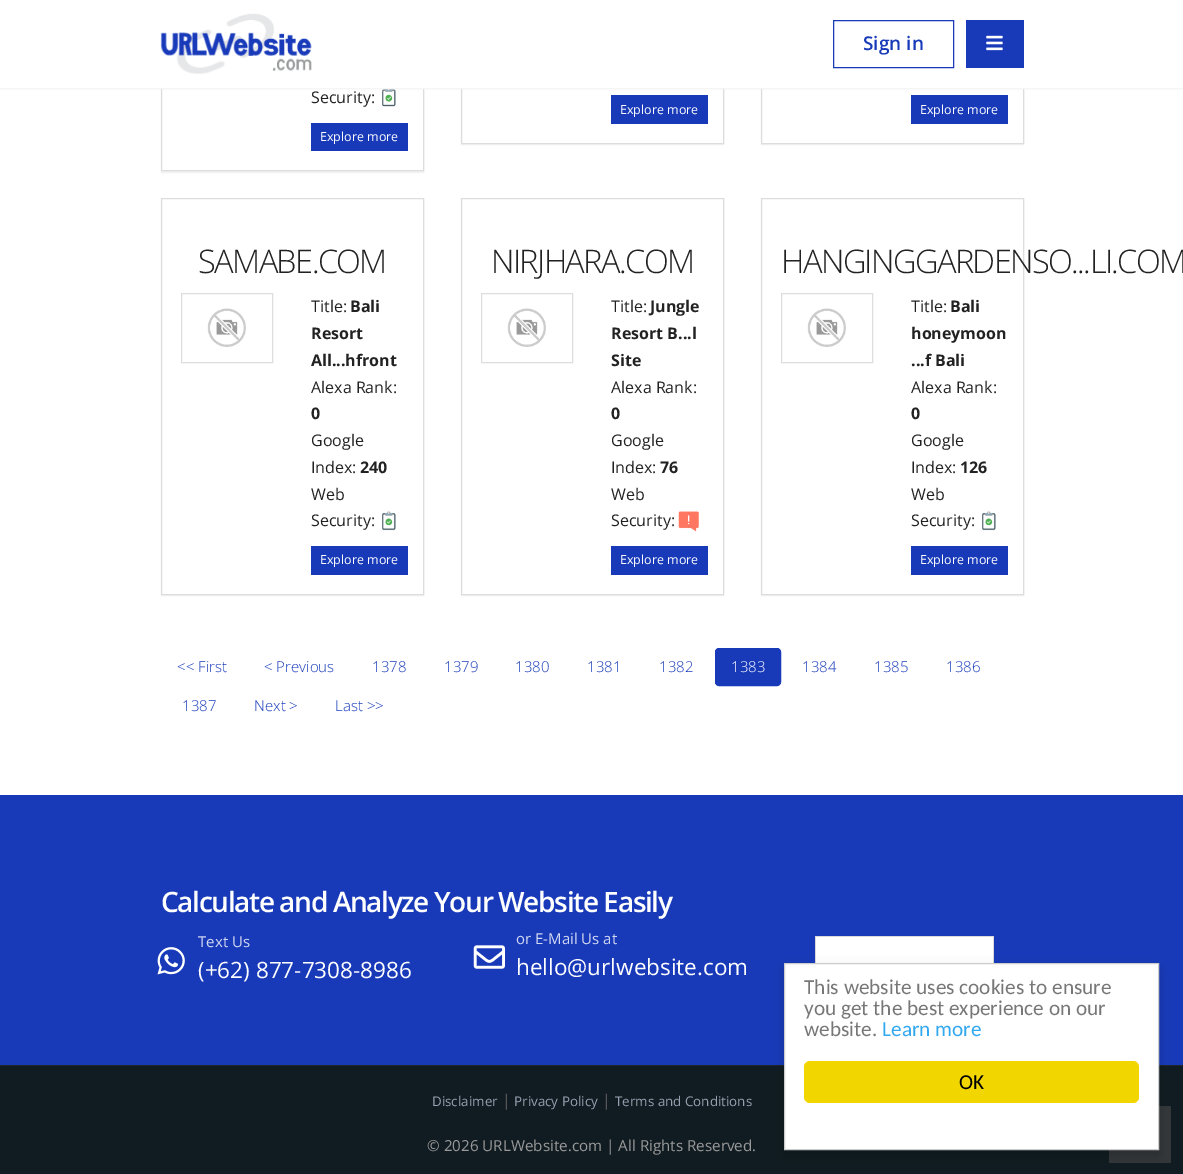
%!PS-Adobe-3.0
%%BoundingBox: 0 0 1183 1174
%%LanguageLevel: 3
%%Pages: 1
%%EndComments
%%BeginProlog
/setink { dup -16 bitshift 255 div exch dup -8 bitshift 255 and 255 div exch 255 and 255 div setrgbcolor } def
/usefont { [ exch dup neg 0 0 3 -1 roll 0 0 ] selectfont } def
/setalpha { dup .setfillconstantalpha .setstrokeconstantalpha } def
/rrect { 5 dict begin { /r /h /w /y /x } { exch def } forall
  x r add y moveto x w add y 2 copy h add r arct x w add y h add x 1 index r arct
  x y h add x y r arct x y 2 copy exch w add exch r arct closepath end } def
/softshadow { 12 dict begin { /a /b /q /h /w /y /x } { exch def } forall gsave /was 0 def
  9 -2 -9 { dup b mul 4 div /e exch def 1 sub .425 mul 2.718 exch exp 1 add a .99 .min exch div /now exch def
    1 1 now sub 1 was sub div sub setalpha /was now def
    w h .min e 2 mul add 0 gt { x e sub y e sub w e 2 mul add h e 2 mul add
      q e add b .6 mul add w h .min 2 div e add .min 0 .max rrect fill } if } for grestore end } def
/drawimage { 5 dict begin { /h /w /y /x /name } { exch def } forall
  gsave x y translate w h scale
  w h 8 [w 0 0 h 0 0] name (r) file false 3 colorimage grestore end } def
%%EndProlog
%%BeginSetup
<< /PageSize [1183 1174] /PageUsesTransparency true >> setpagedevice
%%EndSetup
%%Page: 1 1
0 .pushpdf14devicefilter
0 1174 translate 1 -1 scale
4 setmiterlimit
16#FFFFFF setink
0 0 1183 1174 rectfill
16#000000 setink
161 -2 263 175 0 0.5 0.05 softshadow
16#FFFFFF setink
162 89 261 81 rectfill
16#DDDDDD setink
161.5 -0.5 262 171 rectstroke
(img3.raw) 382 89 14 18 drawimage
16#000000 setink
461 -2 263 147 0 0.5 0.05 softshadow
16#FFFFFF setink
462 89 261 54 rectfill
16#DDDDDD setink
461.5 -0.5 262 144 rectstroke
16#183AB9 setink
611 95 97 29 rectfill
16#000000 setink
761 -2 263 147 0 0.5 0.05 softshadow
16#FFFFFF setink
762 89 261 54 rectfill
16#DDDDDD setink
761.5 -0.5 262 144 rectstroke
16#183AB9 setink
911 95 97 29 rectfill
16#EAEAEA setink
0 0 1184 89 0 2 0.5 softshadow
16#FFFFFF setink
0 0 1183 88 rectfill
16#F5F5F5 setink
0 88 1183 1 rectfill
(img1.raw) 160 13 152 61 drawimage
16#183AB9 setink
833.5 20.5 120 47 rectstroke
/OpenSans-SemiBold 19 usefont
863 50 moveto (Sign in) show
966 20 58 48 rectfill
(img2.raw) 986 35 17 16 drawimage
/OpenSans-Regular 16 usefont
16#222222 setink
311 103 moveto (Security:) show
16#183AB9 setink
311 123 97 28 rectfill
/OpenSans-Regular 12.5 usefont
16#FFFFFF setink
[
    [(Explore more) 320 141]
    [(Explore more) 620 114]
    [(Explore more) 920 114]
] { aload pop moveto show } forall
16#000000 setink
161 199 263 397 0 0.5 0.05 softshadow
16#FFFFFF setink
161.5 198.5 moveto 423.5 198.5 lineto 423.5 594.5 lineto 161.5 594.5 lineto closepath gsave fill grestore
16#DDDDDD setink
stroke
/OpenSans-Light 32.5 usefont
16#222222 setink
198 273 moveto -1.6 0 (SAMABE.COM) ashow
16#DDDDDD setink
181.5 293.5 91 69 rectstroke
(img4.raw) 207 308 39 39 drawimage
/OpenSans-Regular 16 usefont
16#222222 setink
311 312 moveto (Title:) show
/OpenSans-Bold 16 usefont
[
    [(Bali) 350 312]
    [(Resort) 311 339]
    [(All...hfront) 311 366]
] { aload pop moveto show } forall
/OpenSans-Regular 16 usefont
311 393 moveto (Alexa Rank:) show
/OpenSans-Bold 16 usefont
311 419 moveto (0) show
/OpenSans-Regular 16 usefont
311 446 moveto (Google) show
311 473 moveto (Index:) show
/OpenSans-Bold 16 usefont
360 473 moveto (240) show
/OpenSans-Regular 16 usefont
311 500 moveto (Web) show
311 526 moveto (Security:) show
(img5.raw) 382 511 14 20 drawimage
16#183AB9 setink
311 546 97 29 rectfill
/OpenSans-Regular 12.5 usefont
16#FFFFFF setink
320 564 moveto (Explore more) show
16#000000 setink
461 199 263 397 0 0.5 0.05 softshadow
16#FFFFFF setink
461.5 198.5 moveto 723.5 198.5 lineto 723.5 594.5 lineto 461.5 594.5 lineto closepath gsave fill grestore
16#DDDDDD setink
stroke
/OpenSans-Light 32.5 usefont
16#222222 setink
491 273 moveto -1.6 0 (NIRJHARA.COM) ashow
16#DDDDDD setink
481.5 293.5 91 69 rectstroke
(img4.raw) 507 308 39 39 drawimage
/OpenSans-Regular 16 usefont
16#222222 setink
611 312 moveto (Title:) show
/OpenSans-Bold 16 usefont
[
    [(Jungle) 650 312]
    [(Resort B...l) 611 339]
    [(Site) 611 366]
] { aload pop moveto show } forall
/OpenSans-Regular 16 usefont
611 393 moveto (Alexa Rank:) show
/OpenSans-Bold 16 usefont
611 419 moveto (0) show
/OpenSans-Regular 16 usefont
611 446 moveto (Google) show
611 473 moveto (Index:) show
/OpenSans-Bold 16 usefont
660 473 moveto (76) show
/OpenSans-Regular 16 usefont
611 500 moveto (Web) show
611 526 moveto (Security:) show
(img6.raw) 678 511 21 21 drawimage
16#183AB9 setink
611 546 97 29 rectfill
/OpenSans-Regular 12.5 usefont
16#FFFFFF setink
620 564 moveto (Explore more) show
16#000000 setink
761 199 263 397 0 0.5 0.05 softshadow
16#FFFFFF setink
761.5 198.5 moveto 1023.5 198.5 lineto 1023.5 594.5 lineto 761.5 594.5 lineto closepath gsave fill grestore
16#DDDDDD setink
stroke
/OpenSans-Light 32.5 usefont
16#222222 setink
781 273 moveto -1.6 0 (HANGINGGARDENSO...LI.COM) ashow
16#DDDDDD setink
781.5 293.5 91 69 rectstroke
(img4.raw) 807 308 39 39 drawimage
/OpenSans-Regular 16 usefont
16#222222 setink
911 312 moveto (Title:) show
/OpenSans-Bold 16 usefont
[
    [(Bali) 950 312]
    [(honeymoon) 911 339]
    [(...f Bali) 911 366]
] { aload pop moveto show } forall
/OpenSans-Regular 16 usefont
911 393 moveto (Alexa Rank:) show
/OpenSans-Bold 16 usefont
911 419 moveto (0) show
/OpenSans-Regular 16 usefont
911 446 moveto (Google) show
911 473 moveto (Index:) show
/OpenSans-Bold 16 usefont
960 473 moveto (126) show
/OpenSans-Regular 16 usefont
911 500 moveto (Web) show
911 526 moveto (Security:) show
(img5.raw) 982 511 14 20 drawimage
16#183AB9 setink
911 546 97 29 rectfill
/OpenSans-Regular 12.5 usefont
16#FFFFFF setink
920 564 moveto (Explore more) show
/OpenSans-Light 15 usefont
16#183AB9 setink
[
    [(<< First) 177 672]
    [(< Previous) 264 672]
    [(1378) 372 672]
    [(1379) 444 672]
    [(1380) 515 672]
    [(1381) 587 672]
    [(1382) 659 672]
] { aload pop moveto show } forall
715.5 648.5 65 37 3.5 rrect gsave fill grestore
stroke
16#FFFFFF setink
731 672 moveto (1383) show
16#183AB9 setink
[
    [(1384) 802 672]
    [(1385) 874 672]
    [(1386) 946 672]
    [(1387) 182 711]
    [(Next >) 254 711]
    [(Last >>) 335 711]
] { aload pop moveto show } forall
0 795 1183 270 rectfill
/OpenSans-SemiBold 28.1 usefont
16#FFFFFF setink
161 912 moveto -1.4 0 (Calculate and Analyze Your Website Easily) ashow
(img7.raw) 157 947 28 28 drawimage
/OpenSans-Regular 15 usefont
16#D1D8F1 setink
198 947 moveto (Text Us) show
/OpenSans-Regular 22.5 usefont
16#FFFFFF setink
198 978 moveto (\(+62\) 877-7308-8986) show
(img8.raw) 473 945 32 24 drawimage
/OpenSans-Regular 15 usefont
16#D1D8F1 setink
516 944 moveto (or E-Mail Us at) show
/OpenSans-Regular 22.5 usefont
16#FFFFFF setink
516 975 moveto (hello@urlwebsite.com) show
[
    [816 937 177 26 16#FFFFFF]
    [815 936 179 1 16#D9D9D9]
    [993 936 1 27 16#D9D9D9]
    [815 936 1 27 16#D9D9D9]
    [0 1066 1183 108 16#111C22]
    [0 1065 1183 1 16#1D272D]
] { aload pop setink rectfill } forall
/OpenSans-Regular 13.4 usefont
16#96A1B1 setink
432 1106 moveto (Disclaimer) show
/OpenSans-Regular 16 usefont
16#555555 setink
502 1106 moveto (|) show
/OpenSans-Regular 13.4 usefont
16#96A1B1 setink
514 1106 moveto (Privacy Policy) show
/OpenSans-Regular 16 usefont
16#555555 setink
602 1106 moveto (|) show
/OpenSans-Regular 13.4 usefont
16#96A1B1 setink
615 1106 moveto (Terms and Conditions) show
/OpenSans-Regular 15.2 usefont
16#999999 setink
427 1151 moveto (© 2026 URLWebsite.com | All Rights Reserved.) show
16#343739 setink
1109 1106 62 57 rectfill
16#000000 setink
784 969 375 187 0 6 0.2 softshadow
16#FFFFFF setink
784.5 963.5 moveto 1158.5 963.5 lineto 1158.5 1149.5 lineto 784.5 1149.5 lineto closepath gsave fill grestore
16#CCCCCC setink
stroke
/Carlito-Regular 21.25 usefont
16#777777 setink
[
    [(This website uses cookies to ensure) 804 994]
    [(you get the best experience on our) 804 1015]
    [(website.) 804 1036]
] { aload pop moveto show } forall
16#31A8F0 setink
882 1036 moveto (Learn more) show
16#F1D600 setink
804 1061 335 42 6 rrect fill
16#000000 setink
959 1089 moveto (OK) show
.poppdf14devicefilter showpage
%%EOF
